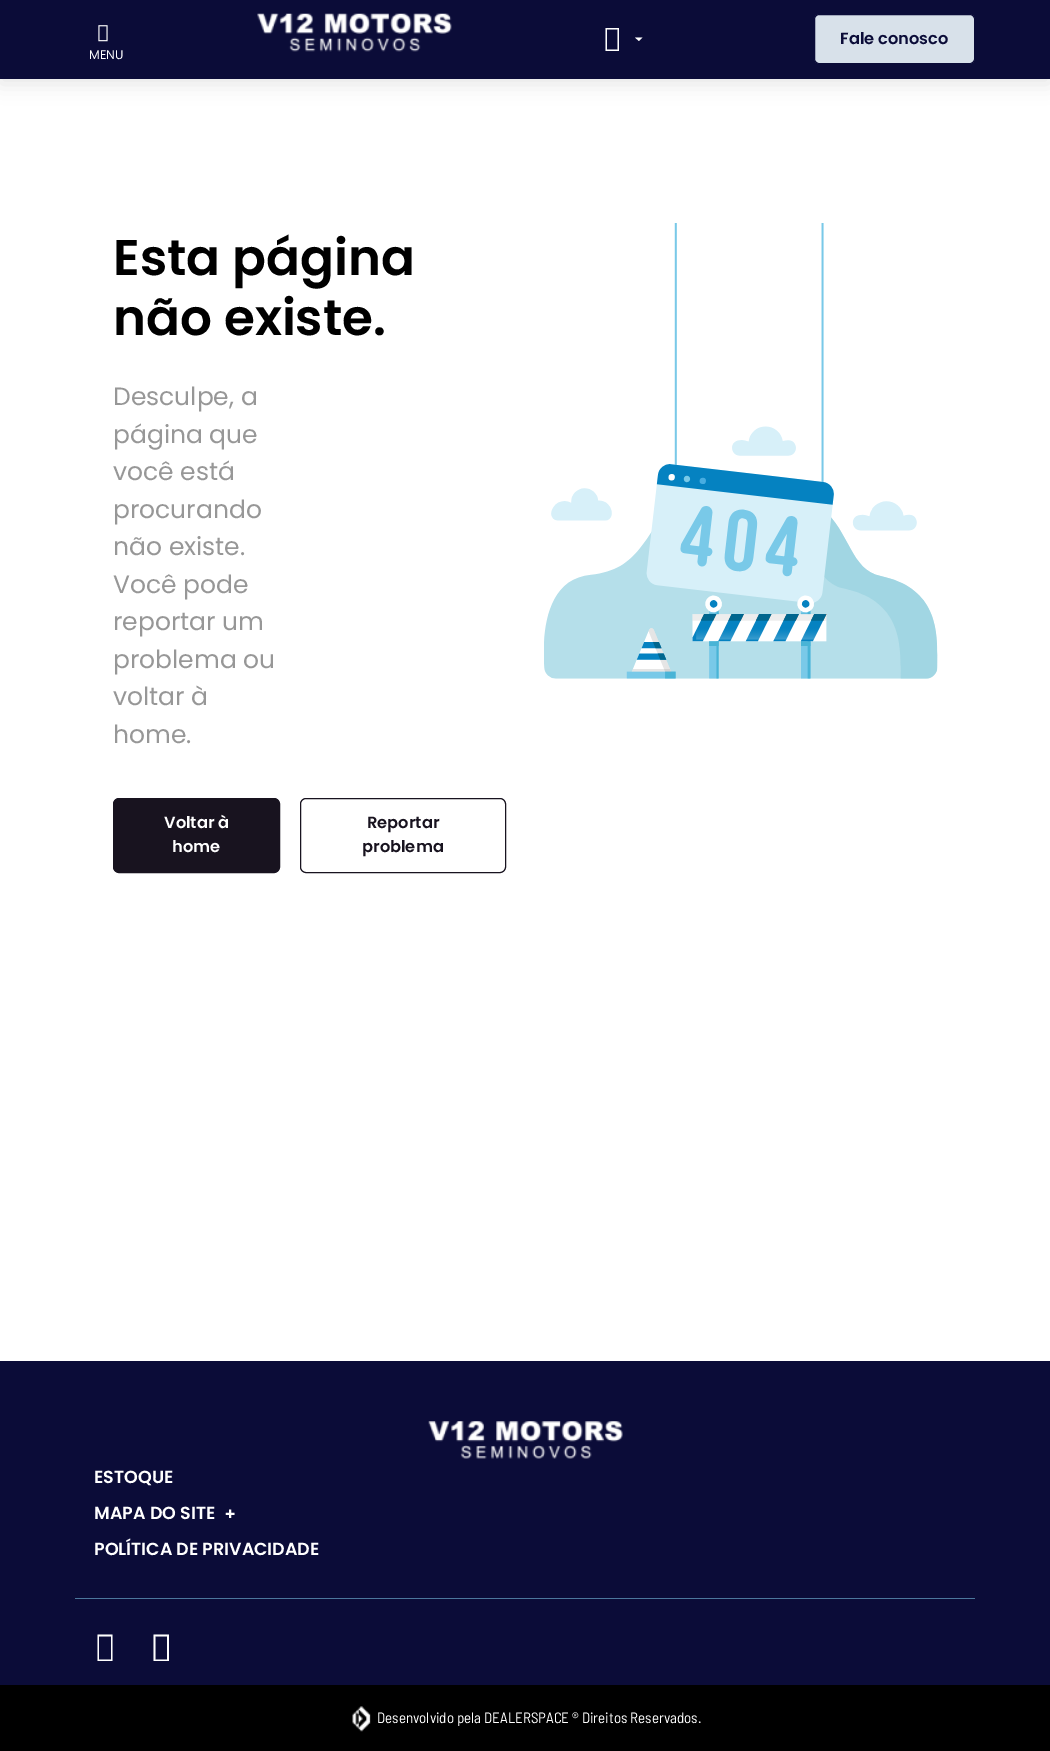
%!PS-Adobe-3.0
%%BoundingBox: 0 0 1050 1751
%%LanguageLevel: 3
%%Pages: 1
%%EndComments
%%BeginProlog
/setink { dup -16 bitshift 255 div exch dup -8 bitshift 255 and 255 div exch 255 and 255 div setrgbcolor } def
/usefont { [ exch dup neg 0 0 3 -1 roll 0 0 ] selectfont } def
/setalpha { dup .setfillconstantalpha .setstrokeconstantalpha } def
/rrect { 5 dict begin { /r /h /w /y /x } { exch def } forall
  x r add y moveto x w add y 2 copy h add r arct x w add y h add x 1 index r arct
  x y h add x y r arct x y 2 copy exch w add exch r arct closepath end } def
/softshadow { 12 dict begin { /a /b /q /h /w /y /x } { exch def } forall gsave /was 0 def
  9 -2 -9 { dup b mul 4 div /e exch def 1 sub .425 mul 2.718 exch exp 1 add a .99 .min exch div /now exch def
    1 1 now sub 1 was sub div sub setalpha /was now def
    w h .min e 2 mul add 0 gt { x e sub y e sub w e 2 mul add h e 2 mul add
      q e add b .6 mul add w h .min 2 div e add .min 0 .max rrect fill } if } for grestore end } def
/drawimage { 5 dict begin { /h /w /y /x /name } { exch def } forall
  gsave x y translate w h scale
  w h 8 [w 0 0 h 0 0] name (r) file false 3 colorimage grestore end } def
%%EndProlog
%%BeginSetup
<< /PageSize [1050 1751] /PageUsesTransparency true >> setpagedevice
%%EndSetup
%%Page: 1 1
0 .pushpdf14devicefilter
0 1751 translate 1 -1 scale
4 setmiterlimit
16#FFFFFF setink
0 0 1050 1751 rectfill
16#000000 setink
0 5 1050 79 0 9.5 0.1 softshadow
16#0B0C38 setink
0 0 1050 79 rectfill
(img1.raw) 257 13 195 39 drawimage
16#FFFFFF setink
605.5 51 moveto 605.5 28 lineto 619 28 lineto 619 51 lineto closepath 607 49.5 moveto 617.5 49.5 lineto 617.5 29.5 lineto 607 29.5 lineto closepath 635 37.5 moveto 642.5 37.5 lineto 639 41 lineto closepath fill
16#D8E1EA setink
814.5 14.5 160 49 4.5 rrect gsave fill grestore
16#0B0C38 setink
stroke
/Poppins-SemiBold 16.25 usefont
840 44 moveto (Fale conosco) show
(img2.raw) 98 25 10 17 drawimage
/Poppins-Regular 12.5 usefont
16#FFFFFF setink
89 59 moveto (MENU) show
/Poppins-SemiBold 50 usefont
16#000000 setink
113 275 moveto (Esta página) show
113 335 moveto (não existe.) show
/Poppins-Regular 25 usefont
16#979797 setink
[
    [(Desculpe, a) 113 405]
    [(página que) 113 443]
    [(você está) 113 480]
    [(procurando) 113 518]
    [(não existe.) 113 555]
    [(Você pode) 113 593]
    [(reportar um) 113 630]
    [(problema ou) 113 668]
    [(voltar à) 113 705]
    [(home.) 113 743]
] { aload pop moveto show } forall
16#18131F setink
113.5 798.5 166 74 5.5 rrect gsave fill grestore
stroke
/Poppins-SemiBold 16.25 usefont
16#FFFFFF setink
164 828 moveto (Voltar à) show
172 852 moveto (home) show
16#18131F setink
300.5 798.5 205 74 5.5 rrect stroke
367 828 moveto (Reportar) show
362 852 moveto (problema) show
(img3.raw) 544 223 394 456 drawimage
16#0B0C38 setink
0 1361 1050 324 rectfill
(img4.raw) 428 1421 195 38 drawimage
/Poppins-SemiBold 17.5 usefont
16#FFFFFF setink
94 1483 moveto (ESTOQUE) show
94 1519 moveto (MAPA DO SITE) show
/NotoSans-Black 17.5 usefont
225 1520 moveto (+) show
/Poppins-SemiBold 17.5 usefont
94 1555 moveto (POLÍTICA DE PRIVACIDADE) show
16#4C779C setink
75 1598 900 1 rectfill
16#FFFFFF setink
97.5 1661 moveto 97.5 1634.5 lineto 112.5 1634.5 lineto 112.5 1661 lineto closepath 99 1659.5 moveto 111 1659.5 lineto 111 1636.5 lineto 99 1636.5 lineto closepath fill
153.5 1661 moveto 153.5 1634.5 lineto 169 1634.5 lineto 169 1661 lineto closepath 155.5 1659.5 moveto 167 1659.5 lineto 167 1636.5 lineto 155.5 1636.5 lineto closepath fill
16#000000 setink
0 1685 1050 66 rectfill
(img5.raw) 352 1706 19 26 drawimage
/BarlowSemiCondensed-Regular 15 usefont
16#FFFFFF setink
377 1723 moveto (Desenvolvido pela DEALERSPACE ® Direitos Reservados.) show
.poppdf14devicefilter showpage
%%EOF
